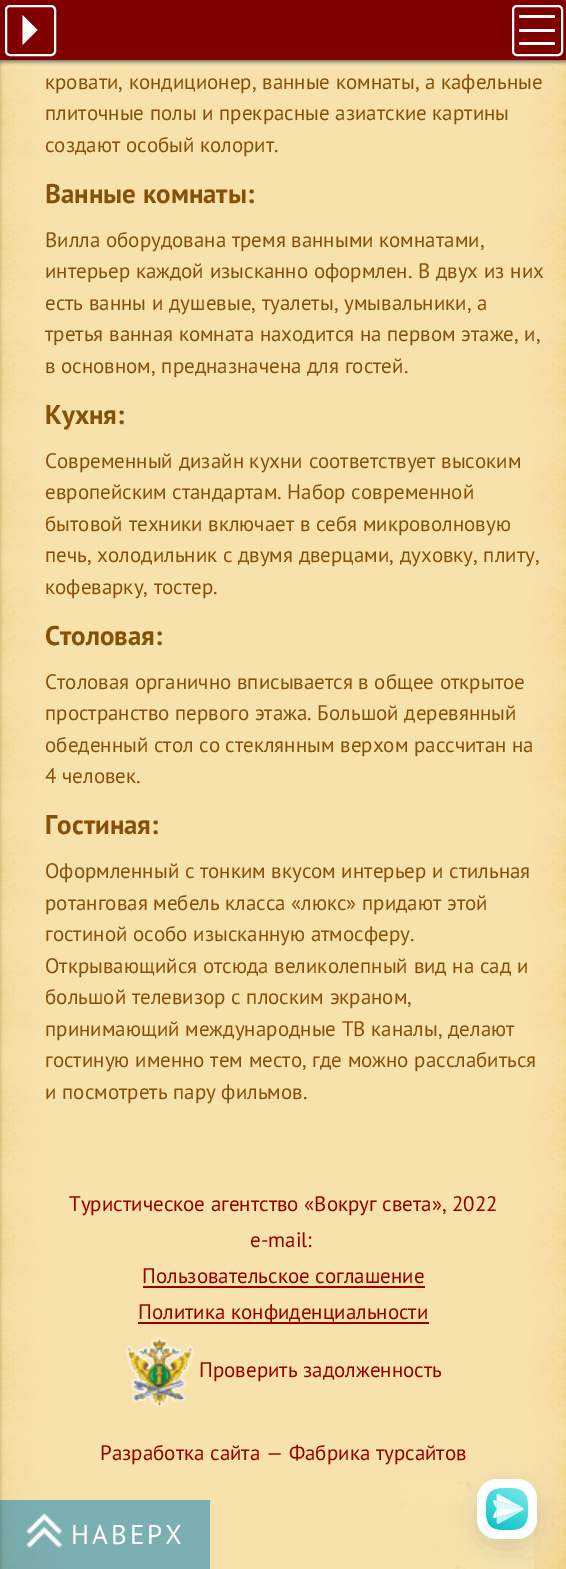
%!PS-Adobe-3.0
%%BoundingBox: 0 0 566 1569
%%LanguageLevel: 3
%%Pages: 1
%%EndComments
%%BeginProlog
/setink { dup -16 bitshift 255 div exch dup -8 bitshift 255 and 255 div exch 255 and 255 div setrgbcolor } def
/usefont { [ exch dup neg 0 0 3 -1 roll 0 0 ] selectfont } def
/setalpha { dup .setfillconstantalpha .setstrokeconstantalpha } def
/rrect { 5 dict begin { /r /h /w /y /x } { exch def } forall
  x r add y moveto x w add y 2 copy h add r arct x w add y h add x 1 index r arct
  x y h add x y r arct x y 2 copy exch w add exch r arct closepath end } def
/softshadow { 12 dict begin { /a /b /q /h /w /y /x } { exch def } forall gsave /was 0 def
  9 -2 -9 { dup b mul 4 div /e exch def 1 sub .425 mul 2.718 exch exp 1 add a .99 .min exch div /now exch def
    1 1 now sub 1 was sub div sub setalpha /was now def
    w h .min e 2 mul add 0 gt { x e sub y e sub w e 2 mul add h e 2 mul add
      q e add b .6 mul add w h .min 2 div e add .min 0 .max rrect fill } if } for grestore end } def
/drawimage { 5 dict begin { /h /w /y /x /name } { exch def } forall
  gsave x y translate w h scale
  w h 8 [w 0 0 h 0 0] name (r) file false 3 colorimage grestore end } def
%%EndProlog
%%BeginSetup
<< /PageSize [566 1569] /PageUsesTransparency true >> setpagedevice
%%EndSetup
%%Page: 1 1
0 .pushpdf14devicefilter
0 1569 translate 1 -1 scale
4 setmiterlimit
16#F8E2AC setink
0 0 566 1569 rectfill
(img1.raw) 0 60 566 1509 drawimage
16#646464 setink
0 2 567 60 0 2 0.9 softshadow
16#800000 setink
0 0 566 60 rectfill
16#FFFFFF setink
2 setlinewidth
6 6 49 49 4 rrect stroke
22.5 45 moveto 22.5 15 lineto 37.5 30 lineto closepath fill
513 6 49 49 4 rrect stroke
519 29 36 3 1.5 rrect fill
519 15 36 3 1.5 rrect fill
519 42 36 3 1.5 rrect fill
0.5 setalpha
16#007CB9 setink
0 1500 210 69 rectfill
1 setalpha
16#1E1E1E setink
-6 0 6 1569 0 2 0.3 softshadow
/PTSans-Regular 21 usefont
16#885109 setink
[
    [(кровати, кондиционер, ванные комнаты, а кафельные) 45 89]
    [(плиточные полы и прекрасные азиатские картины) 45 120]
    [(создают особый колорит.) 45 152]
] { aload pop moveto show } forall
/PTSans-Bold 27 usefont
45 203 moveto (Ванные комнаты:) show
/PTSans-Regular 21 usefont
[
    [(Вилла оборудована тремя ванными комнатами,) 45 247]
    [(интерьер каждой изысканно оформлен. В двух из них) 45 278]
    [(есть ванны и душевые, туалеты, умывальники, а) 45 310]
    [(третья ванная комната находится на первом этаже, и,) 45 341]
    [(в основном, предназначена для гостей.) 45 373]
] { aload pop moveto show } forall
/PTSans-Bold 27 usefont
45 424 moveto (Кухня:) show
/PTSans-Regular 21 usefont
[
    [(Современный дизайн кухни соответствует высоким) 45 468]
    [(европейским стандартам. Набор современной) 45 499]
    [(бытовой техники включает в себя микроволновую) 45 531]
    [(печь, холодильник с двумя дверцами, духовку, плиту,) 45 562]
    [(кофеварку, тостер.) 45 594]
] { aload pop moveto show } forall
/PTSans-Bold 27 usefont
45 645 moveto (Столовая:) show
/PTSans-Regular 21 usefont
[
    [(Столовая органично вписывается в общее открытое) 45 689]
    [(пространство первого этажа. Большой деревянный) 45 720]
    [(обеденный стол со стеклянным верхом рассчитан на) 45 752]
    [(4 человек.) 45 783]
] { aload pop moveto show } forall
/PTSans-Bold 27 usefont
45 834 moveto (Гостиная:) show
/PTSans-Regular 21 usefont
[
    [(Оформленный с тонким вкусом интерьер и стильная) 45 878]
    [(ротанговая мебель класса «люкс» придают этой) 45 910]
    [(гостиной особо изысканную атмосферу.) 45 941]
    [(Открывающийся отсюда великолепный вид на сад и) 45 973]
    [(большой телевизор с плоским экраном,) 45 1004]
    [(принимающий международные ТВ каналы, делают) 45 1036]
    [(гостиную именно тем место, где можно расслабиться) 45 1067]
    [(и посмотреть пару фильмов.) 45 1099]
] { aload pop moveto show } forall
16#980000 setink
[
    [(Туристическое агентство «Вокруг света», 2022) 69 1211]
    [(e-mail:) 250 1247]
    [(Пользовательское соглашение) 142 1283]
] { aload pop moveto show } forall
143 1286 282 2 rectfill
138 1322 291 2 rectfill
138 1319 moveto (Политика конфиденциальности) show
(img2.raw) 126 1337 68 70 drawimage
199 1377 moveto (Проверить задолженность) show
100 1460 moveto (Разработка сайта — Фабрика турсайтов) show
(img3.raw) 26 1513 36 35 drawimage
/PTSans-Regular 27 usefont
16#FFFFFF setink
71 1544 moveto 3 0 (НАВЕРХ) ashow
16#0E152F setink
477 1488 60 60 20 13.5 0.13 softshadow
16#FFFFFF setink
477 1479 60 60 20 rrect fill
(img4.raw) 486 1488 42 42 drawimage
.poppdf14devicefilter showpage
%%EOF
